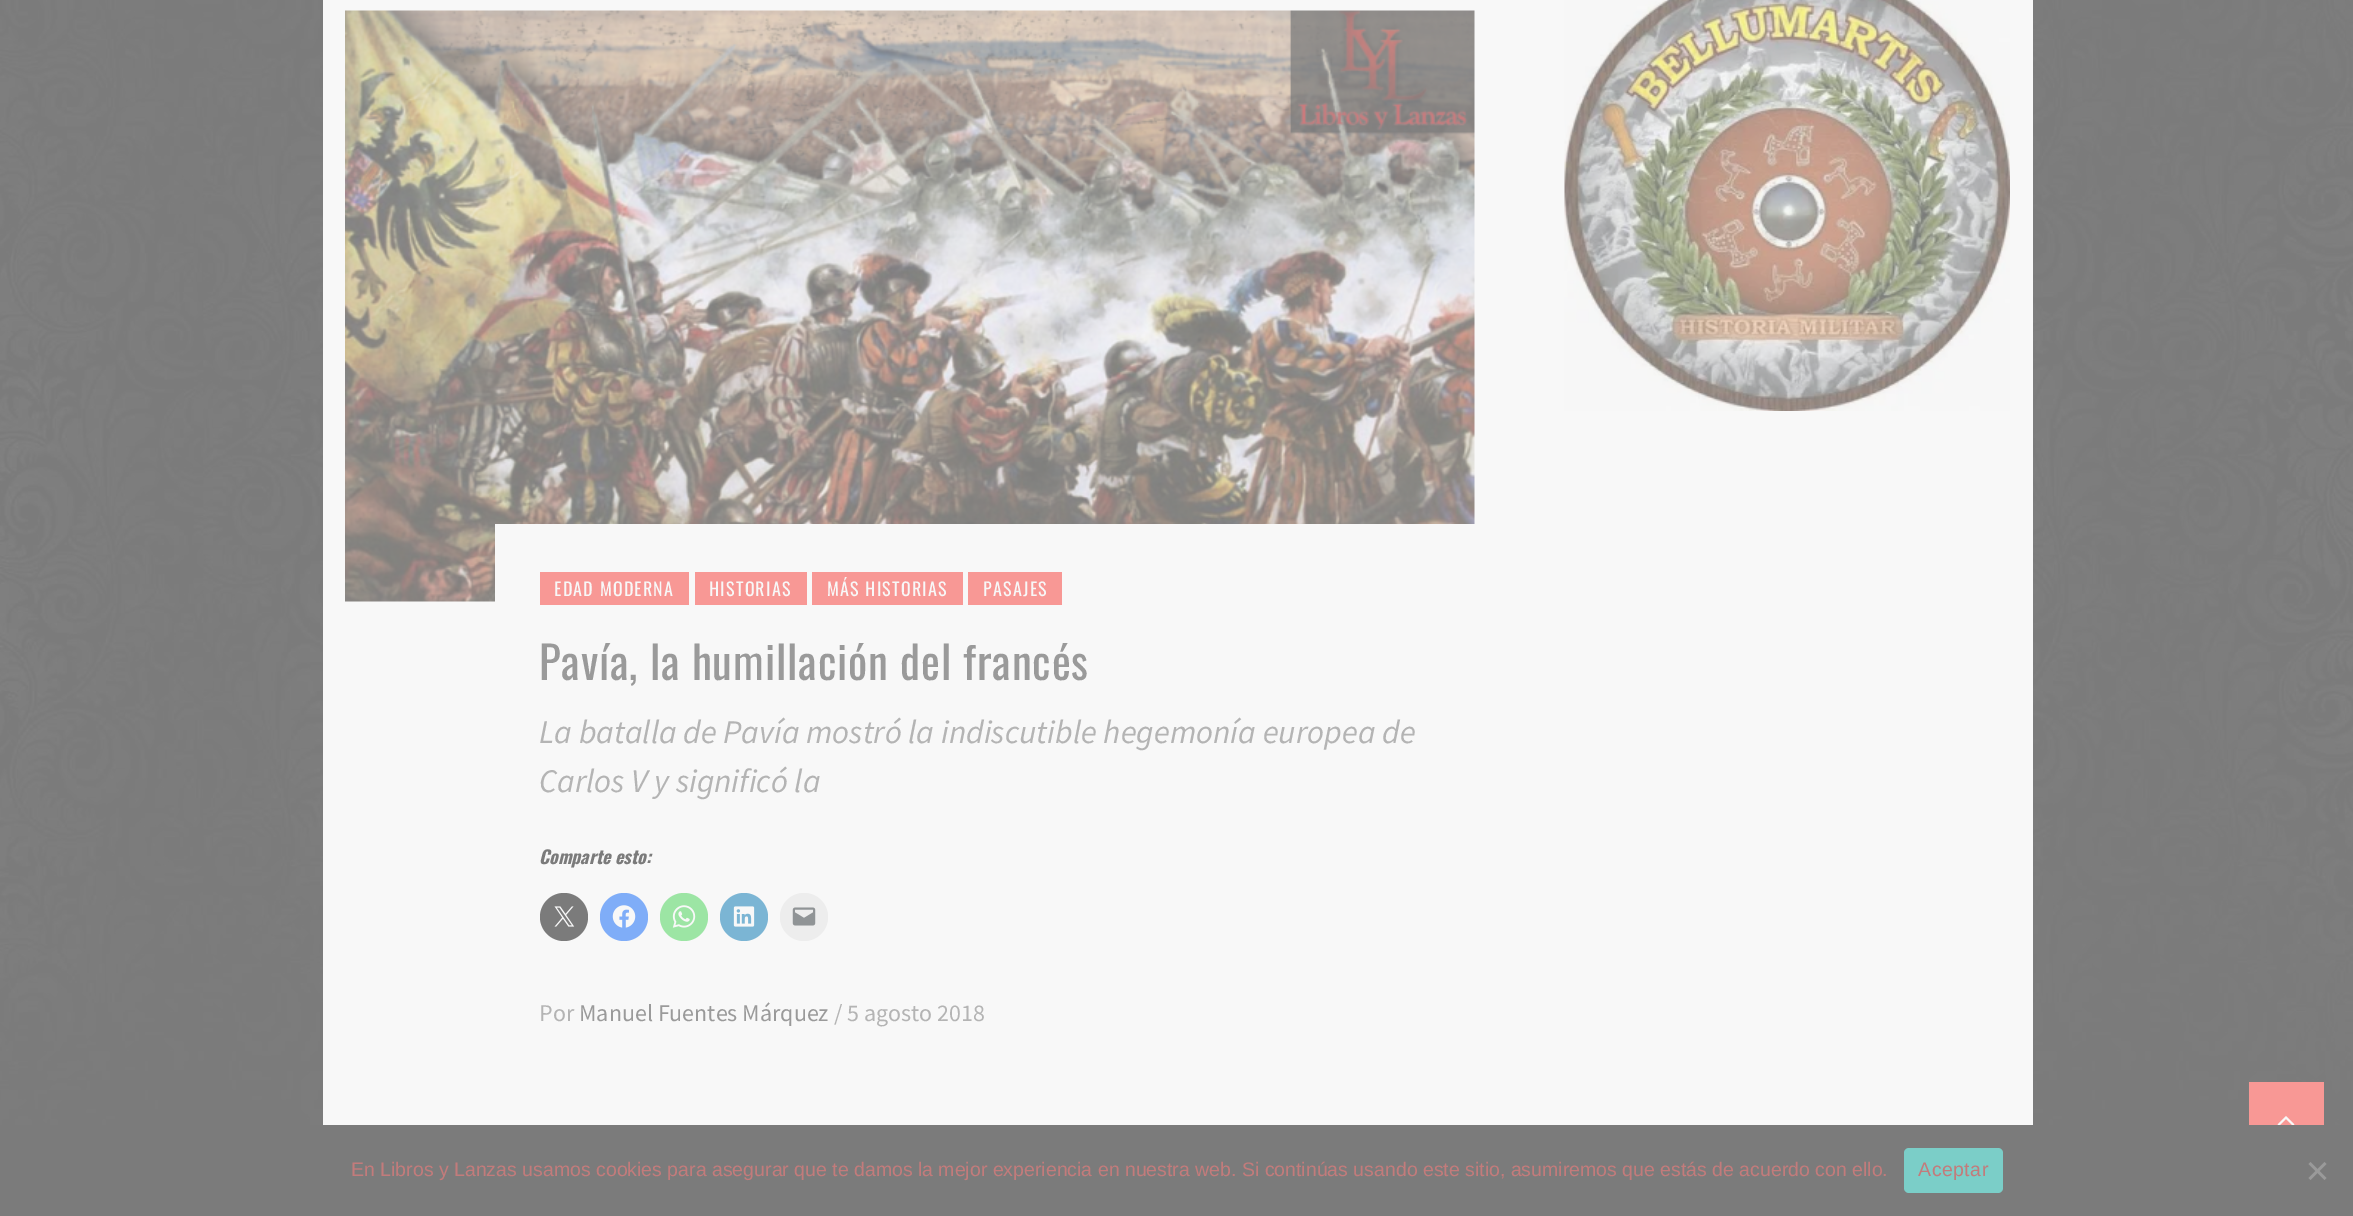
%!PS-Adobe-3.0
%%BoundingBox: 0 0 2353 1216
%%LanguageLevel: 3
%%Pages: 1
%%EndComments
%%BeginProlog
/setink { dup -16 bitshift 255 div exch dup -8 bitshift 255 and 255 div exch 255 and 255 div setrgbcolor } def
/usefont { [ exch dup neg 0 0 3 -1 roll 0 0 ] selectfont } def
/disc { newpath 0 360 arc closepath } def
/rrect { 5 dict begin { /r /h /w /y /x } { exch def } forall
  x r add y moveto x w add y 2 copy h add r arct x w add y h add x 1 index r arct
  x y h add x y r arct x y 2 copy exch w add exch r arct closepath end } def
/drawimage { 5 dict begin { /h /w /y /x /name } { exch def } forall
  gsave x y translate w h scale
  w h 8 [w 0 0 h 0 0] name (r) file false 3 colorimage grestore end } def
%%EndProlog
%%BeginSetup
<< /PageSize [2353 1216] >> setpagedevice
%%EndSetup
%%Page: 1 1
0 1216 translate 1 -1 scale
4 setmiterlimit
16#FFFFFF setink
0 0 2353 1216 rectfill
(img1.raw) 0 0 2353 1125 drawimage
16#F8F8F8 setink
323 0 1710 1125 rectfill
(img2.raw) 1564 0 446 411 drawimage
(img3.raw) 345 10 1130 592 drawimage
495 524 980 78 rectfill
16#F89895 setink
540 572 149 33 rectfill
/Oswald-Regular 18 usefont
16#F8F8F8 setink
554 596 moveto 1.25 0 (EDAD MODERNA) ashow
16#F89895 setink
695 572 112 33 rectfill
16#F8F8F8 setink
709 596 moveto 1.25 0 (HISTORIAS) ashow
16#F89895 setink
812 572 151 33 rectfill
16#F8F8F8 setink
827 596 moveto 1.25 0 (MÁS HISTORIAS) ashow
16#F89895 setink
968 572 94 33 rectfill
16#F8F8F8 setink
983 596 moveto 1.25 0 (PASAJES) ashow
/Oswald-Regular 45 usefont
16#9A9A9A setink
539 680 moveto 0.9 0 (Pavía, la humillación del francés) ashow
/SourceSansPro-Italic 33 usefont
16#B4B4B4 setink
539 743 moveto (La batalla de Pavía mostró la indiscutible hegemonía europea de) show
539 792 moveto (Carlos V y significó la) show
/Oswald-BoldItalic 18 usefont
16#7B7B7B setink
539 864 moveto (Comparte esto:) show
564 917 24 disc fill
(img4.raw) 554 906 21 21 drawimage
16#7FADF8 setink
624 917 24 disc fill
(img5.raw) 612 905 24 23 drawimage
16#9CE5A4 setink
684 917 24 disc fill
(img6.raw) 672 905 24 23 drawimage
16#7BB5D4 setink
744 917 24 disc fill
(img7.raw) 733 906 22 21 drawimage
16#EDEDED setink
804 917 24 disc fill
(img8.raw) 792 907 24 19 drawimage
/SourceSansPro-Regular 24 usefont
16#B4B4B4 setink
539 1021 moveto (Por) show
16#9A9A9A setink
579 1021 moveto (Manuel Fuentes Márquez) show
16#B4B4B4 setink
834 1021 moveto (/ 5 agosto 2018) show
16#F89895 setink
2249 1082 75 43 rectfill
(img9.raw) 2277 1116 18 9 drawimage
16#7B7B7B setink
0 1125 2353 91 rectfill
/LiberationSans-Regular 19.5 usefont
16#C37B7B setink
351 1176 moveto (En Libros y Lanzas usamos cookies para asegurar que te damos la mejor experiencia en nuestra web. Si continúas usando este sitio, asumiremos que estás de acuerdo con ello.) show
16#7BCEC8 setink
1904 1148 99 45 5 rrect fill
16#C37B7B setink
1918 1176 moveto 0.5 0 (Aceptar) ashow
16#9A9A9A setink
2324.5 1162 moveto 2326.5 1164 lineto 2310.5 1180 lineto 2308.5 1178 lineto closepath fill
2308.5 1164 moveto 2310.5 1162 lineto 2326.5 1178 lineto 2324.5 1180 lineto closepath fill
showpage
%%EOF
